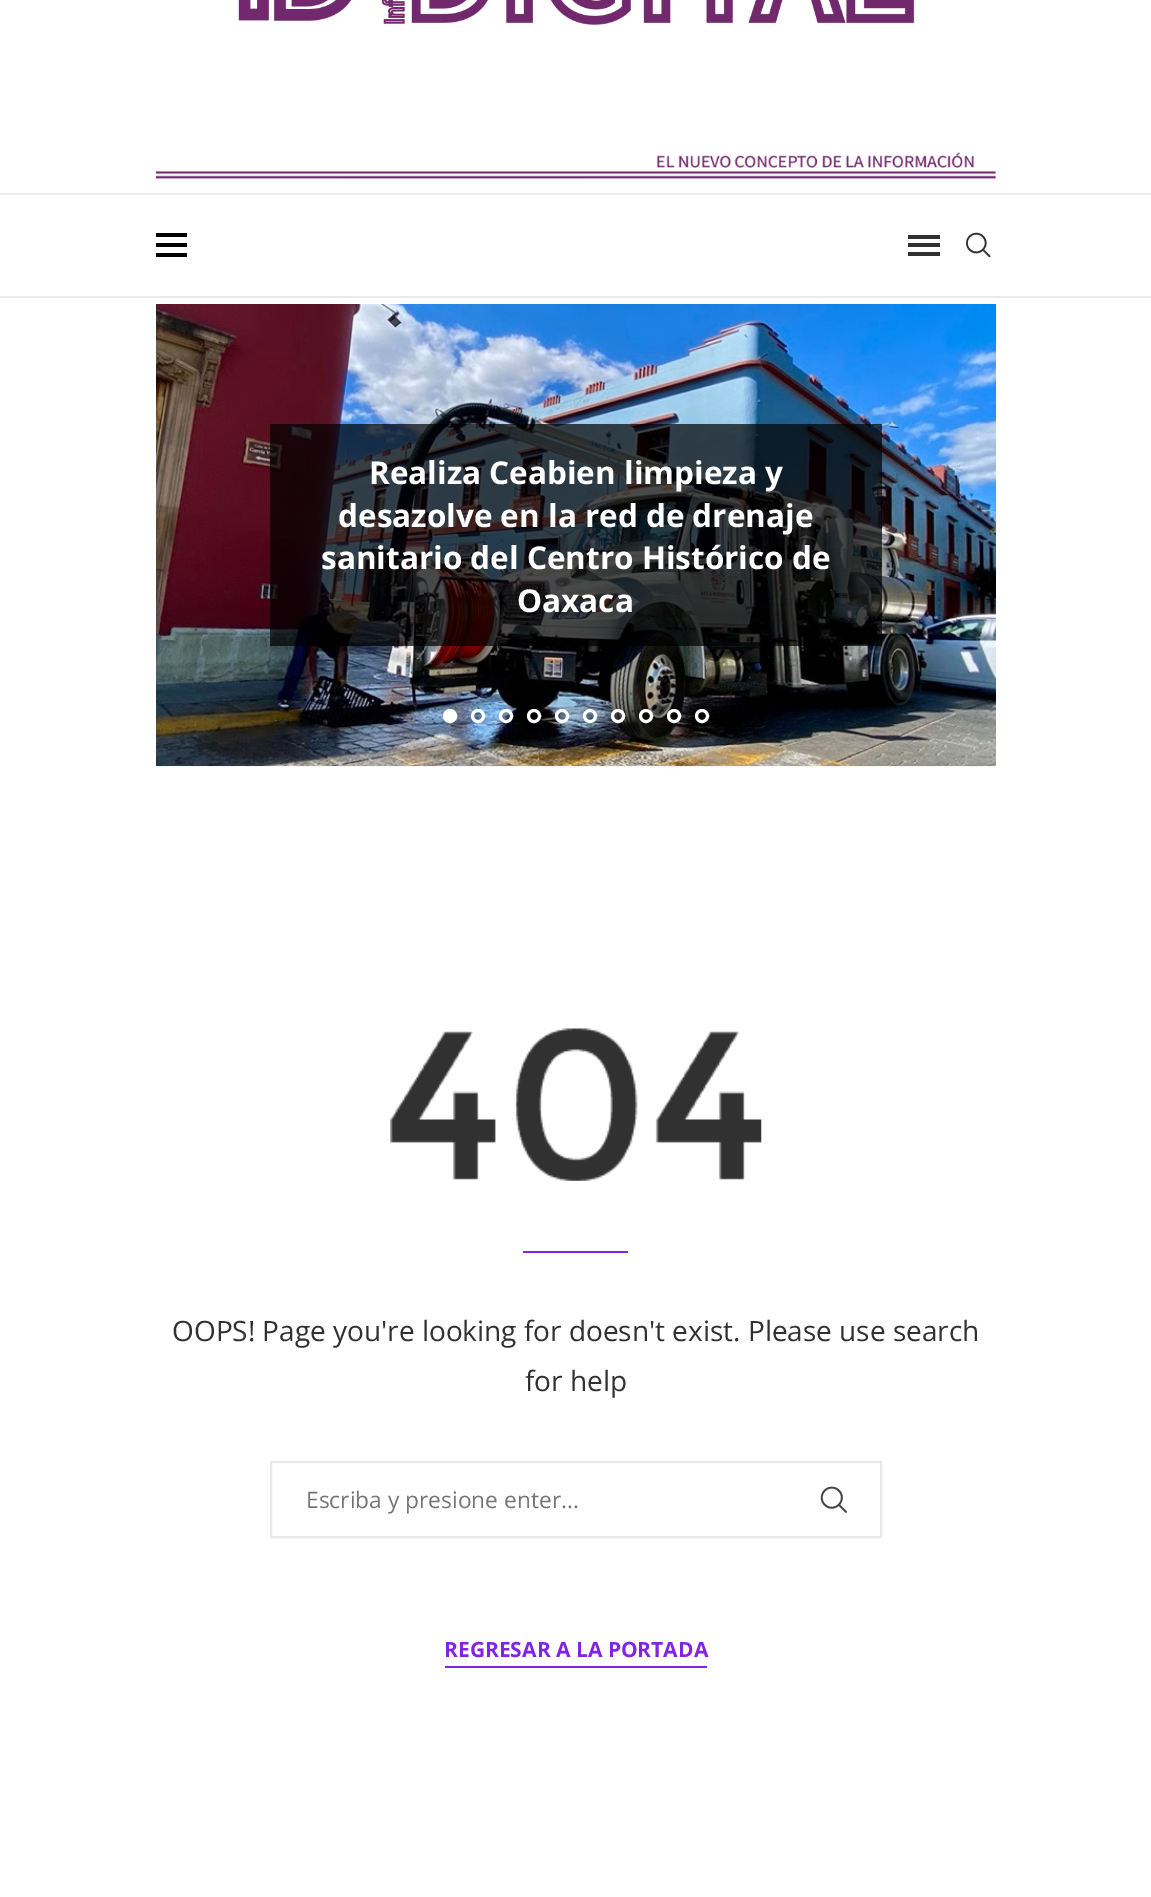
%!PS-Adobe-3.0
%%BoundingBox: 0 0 1151 1897
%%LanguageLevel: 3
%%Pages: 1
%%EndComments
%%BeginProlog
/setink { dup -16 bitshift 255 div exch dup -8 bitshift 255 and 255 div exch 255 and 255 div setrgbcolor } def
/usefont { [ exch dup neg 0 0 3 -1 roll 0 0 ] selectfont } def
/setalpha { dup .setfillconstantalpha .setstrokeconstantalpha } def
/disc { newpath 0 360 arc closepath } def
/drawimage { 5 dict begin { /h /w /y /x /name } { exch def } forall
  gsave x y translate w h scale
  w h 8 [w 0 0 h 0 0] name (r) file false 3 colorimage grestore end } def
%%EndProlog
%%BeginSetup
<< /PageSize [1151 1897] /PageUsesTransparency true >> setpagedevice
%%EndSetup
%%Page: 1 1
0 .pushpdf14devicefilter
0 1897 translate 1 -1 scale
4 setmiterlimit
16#FFFFFF setink
0 0 1151 1897 rectfill
(img1.raw) 238 0 677 25 drawimage
(img2.raw) 155 152 841 27 drawimage
[
    [0 193 1151 2 16#ECECEC]
    [0 296 1151 2 16#ECECEC]
    [156 233 31 4 16#000000]
    [156 243 31 4 16#000000]
    [156 253 31 4 16#000000]
    [908 235 32 4 16#313131]
    [908 252 32 4 16#313131]
    [908 243 32 4 16#313131]
] { aload pop setink rectfill } forall
(img3.raw) 966 232 25 26 drawimage
16#F5F5F5 setink
156 766 840 1 rectfill
(img4.raw) 156 304 840 462 drawimage
0.7 setalpha
16#000000 setink
270 424 612 222 rectfill
/OpenSans-Bold 31.5 usefont
1 setalpha
16#FFFFFF setink
[
    [(Realiza Ceabien limpieza y) 369 484]
    [(desazolve en la red de drenaje) 338 527]
    [(sanitario del Centro Histórico de) 321 569]
    [(Oaxaca) 517 612]
] { aload pop moveto show } forall
450 716 5.5 disc gsave fill grestore
3 setlinewidth
stroke
0.3 setalpha
16#000000 setink
478 716 5.5 disc fill
1 setalpha
16#FFFFFF setink
478 716 5.5 disc stroke
0.3 setalpha
16#000000 setink
506 716 5.5 disc fill
1 setalpha
16#FFFFFF setink
506 716 5.5 disc stroke
0.3 setalpha
16#000000 setink
534 716 5.5 disc fill
1 setalpha
16#FFFFFF setink
534 716 5.5 disc stroke
0.3 setalpha
16#000000 setink
562 716 5.5 disc fill
1 setalpha
16#FFFFFF setink
562 716 5.5 disc stroke
0.3 setalpha
16#000000 setink
590 716 5.5 disc fill
1 setalpha
16#FFFFFF setink
590 716 5.5 disc stroke
0.3 setalpha
16#000000 setink
618 716 5.5 disc fill
1 setalpha
16#FFFFFF setink
618 716 5.5 disc stroke
0.3 setalpha
16#000000 setink
646 716 5.5 disc fill
1 setalpha
16#FFFFFF setink
646 716 5.5 disc stroke
0.3 setalpha
16#000000 setink
674 716 5.5 disc fill
1 setalpha
16#FFFFFF setink
674 716 5.5 disc stroke
0.3 setalpha
16#000000 setink
702 716 5.5 disc fill
1 setalpha
16#FFFFFF setink
702 716 5.5 disc stroke
(img5.raw) 390 1028 372 153 drawimage
16#8224E3 setink
523 1251 105 2 rectfill
/OpenSans-Regular 28 usefont
16#313131 setink
172 1341 moveto (OOPS! Page you're looking for doesn't exist. Please use search) show
525 1391 moveto (for help) show
16#E9E9E9 setink
2 setlinewidth
271 1462 610 75 rectstroke
/OpenSans-Regular 22.75 usefont
16#757575 setink
306 1508 moveto (Escriba y presione enter...) show
(img6.raw) 820 1486 27 27 drawimage
/OpenSans-Bold 21 usefont
16#8224E3 setink
444 1657 moveto (REGRESAR A LA PORTADA) show
445 1666 262 2 rectfill
.poppdf14devicefilter showpage
%%EOF
